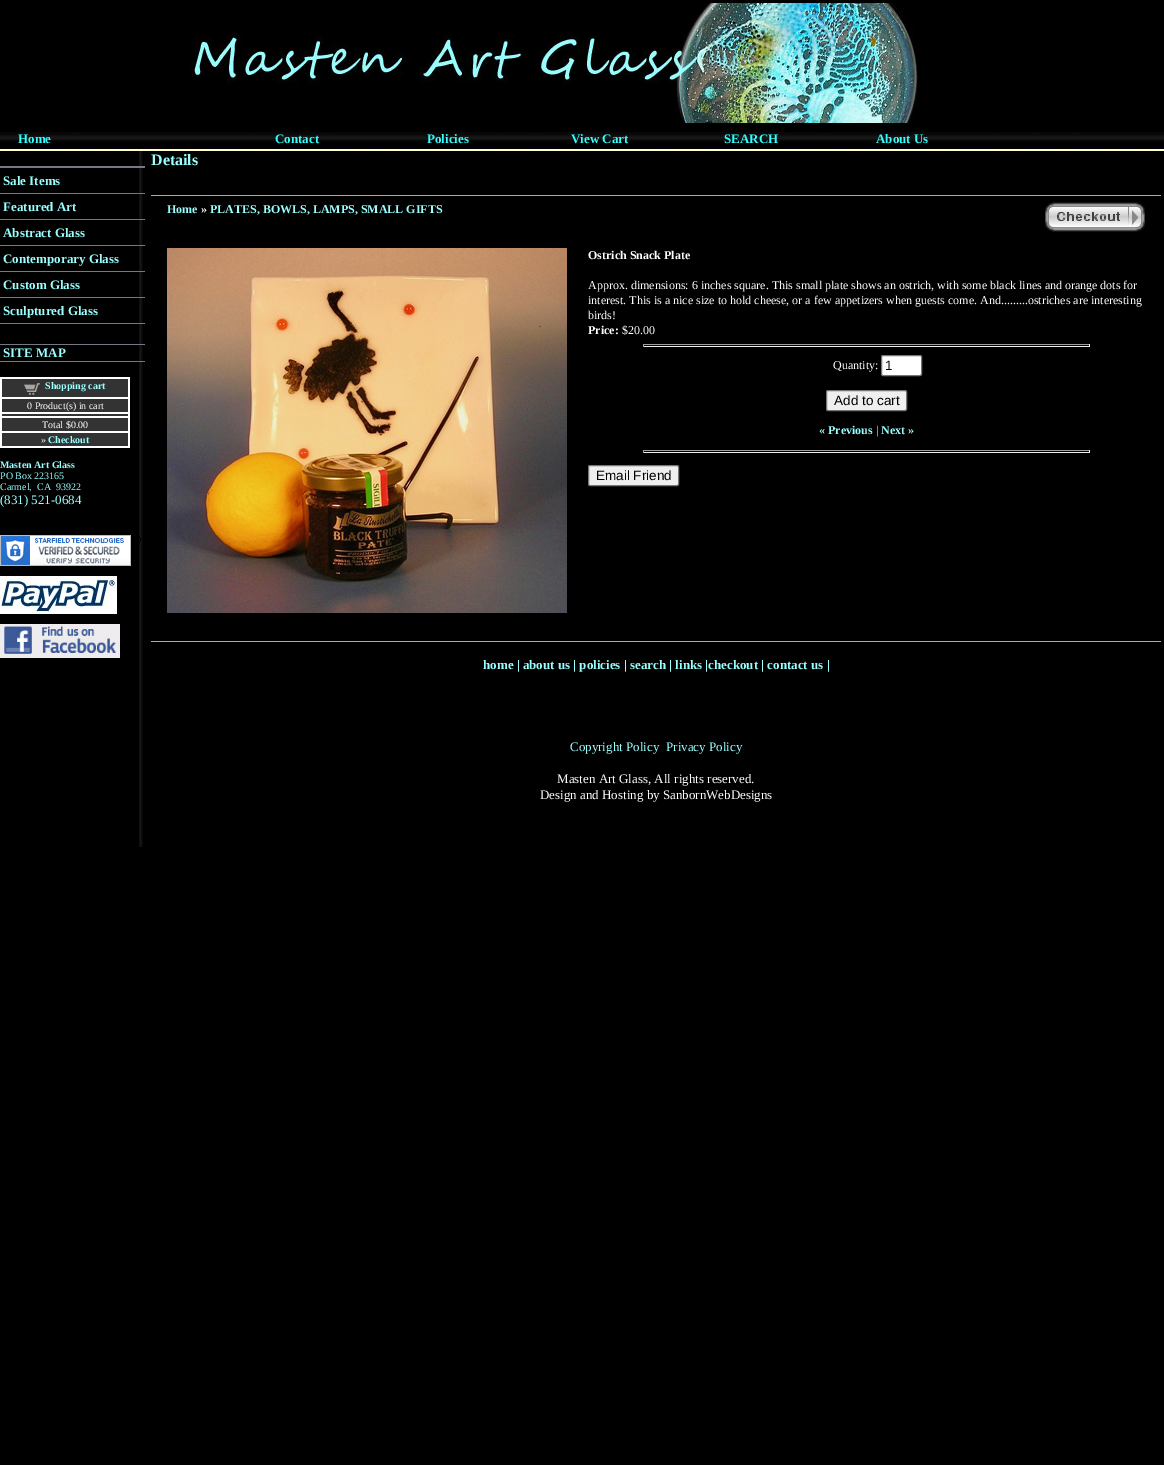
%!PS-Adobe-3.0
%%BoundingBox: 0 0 1164 1465
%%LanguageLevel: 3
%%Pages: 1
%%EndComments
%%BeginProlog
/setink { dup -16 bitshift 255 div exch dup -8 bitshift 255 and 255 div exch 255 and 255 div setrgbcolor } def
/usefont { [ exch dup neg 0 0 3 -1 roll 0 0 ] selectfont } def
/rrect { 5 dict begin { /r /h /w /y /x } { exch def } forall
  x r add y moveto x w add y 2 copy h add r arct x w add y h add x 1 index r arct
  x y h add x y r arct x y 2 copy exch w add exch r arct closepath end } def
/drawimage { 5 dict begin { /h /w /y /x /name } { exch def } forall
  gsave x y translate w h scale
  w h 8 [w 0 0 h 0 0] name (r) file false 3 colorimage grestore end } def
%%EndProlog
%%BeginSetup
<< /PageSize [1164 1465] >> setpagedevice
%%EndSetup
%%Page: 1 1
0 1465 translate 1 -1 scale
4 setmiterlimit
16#000000 setink
0 0 1164 1465 rectfill
(img1.raw) 189 3 729 120 drawimage
(img2.raw) 0 132 1164 19 drawimage
/LiberationSerif-Bold 13 usefont
16#33FFFF setink
[
    [(Home) 18 143]
    [(Contact) 275 143]
    [(Policies) 427 143]
    [(View Cart) 571 143]
    [(SEARCH) 724 143]
    [(About Us) 876 143]
] { aload pop moveto show } forall
(img3.raw) 139 151 4 696 drawimage
16#767981 setink
0 166 145 2 rectfill
16#99FFFF setink
3 185 moveto (Sale Items) show
16#767981 setink
0 193 145 1 rectfill
16#99FFFF setink
3 211 moveto (Featured Art) show
16#767981 setink
0 219 145 1 rectfill
16#99FFFF setink
3 237 moveto (Abstract Glass) show
16#767981 setink
0 245 145 1 rectfill
16#99FFFF setink
3 263 moveto (Contemporary Glass) show
16#767981 setink
0 271 145 1 rectfill
16#99FFFF setink
3 289 moveto (Custom Glass) show
16#767981 setink
0 297 145 1 rectfill
16#99FFFF setink
3 315 moveto (Sculptured Glass) show
16#767981 setink
0 323 145 1 rectfill
0 344 145 1 rectfill
16#99FFFF setink
3 357 moveto (SITE MAP) show
[
    [0 361 145 1 16#767981]
    [0 377 130 71 16#FFFFFF]
    [2 379 126 18 16#333333]
] { aload pop setink rectfill } forall
(img4.raw) 24 383 16 12 drawimage
/LiberationSerif-Bold 10 usefont
16#99FFFF setink
45 389 moveto (Shopping cart) show
16#333333 setink
2 399 126 13 rectfill
/LiberationSerif-Regular 10 usefont
16#FFFFFF setink
27 409 moveto (0 Product\(s\) in cart) show
16#333333 setink
2 414 126 2 rectfill
2 418 126 13 rectfill
16#FFFFFF setink
42 428 moveto (Total $0.00) show
16#333333 setink
2 433 126 13 rectfill
16#FFFFFF setink
41 443 moveto (») show
/LiberationSerif-Bold 10 usefont
16#99FFFF setink
48 443 moveto (Checkout) show
0 468 moveto (Masten Art Glass) show
/LiberationSerif-Regular 10 usefont
0 479 moveto (PO Box 223165) show
0 490 moveto (Carmel,  CA  93922) show
/LiberationSerif-Regular 13 usefont
0 504 moveto (\(831\) 521-0684) show
(img5.raw) 0 535 141 31 drawimage
(img6.raw) 0 576 117 38 drawimage
(img7.raw) 0 624 120 34 drawimage
/LiberationSerif-Bold 16 usefont
151 165 moveto (Details) show
16#AAAAAF setink
151 195 1010 1 rectfill
/LiberationSerif-Bold 12 usefont
16#99FFFF setink
167 213 moveto (Home) show
16#FFFFFF setink
201 213 moveto (») show
16#99FFFF setink
210 213 moveto (PLATES, BOWLS, LAMPS, SMALL GIFTS) show
(img8.raw) 1045 202 100 30 drawimage
(img9.raw) 167 248 400 365 drawimage
16#FFFFFF setink
588 259 moveto (Ostrich Snack Plate) show
/LiberationSerif-Regular 12 usefont
[
    [(Approx. dimensions: 6 inches square. This small plate shows an ostrich, with some black lines and orange dots for) 588 289]
    [(interest. This is a nice size to hold cheese, or a few appetizers when guests come. And.........ostriches are interesting) 588 304]
    [(birds!) 588 319]
] { aload pop moveto show } forall
/LiberationSerif-Bold 12 usefont
588 334 moveto (Price:) show
/LiberationSerif-Regular 12 usefont
622 334 moveto ($20.00) show
[
    [643 344 447 1 16#9F9F9F]
    [1089 344 1 3 16#EEEEEE]
    [643 346 447 1 16#EEEEEE]
    [643 344 1 3 16#9F9F9F]
] { aload pop setink rectfill } forall
16#FFFFFF setink
833 369 moveto (Quantity:) show
881.5 355.5 40 20 1.5 rrect gsave fill grestore
16#767676 setink
stroke
/LiberationSans-Regular 13.5 usefont
16#000000 setink
885 370 moveto (1) show
16#EFEFEF setink
826.5 390.5 80 20 1.5 rrect gsave fill grestore
16#767676 setink
stroke
16#000000 setink
834 405 moveto (Add to cart) show
/LiberationSerif-Bold 12 usefont
16#99FFFF setink
819 434 moveto (« Previous) show
/LiberationSerif-Regular 12 usefont
16#FFFFFF setink
876 434 moveto (|) show
/LiberationSerif-Bold 12 usefont
16#99FFFF setink
881 434 moveto (Next ») show
[
    [643 450 447 1 16#9F9F9F]
    [1089 450 1 3 16#EEEEEE]
    [643 452 447 1 16#EEEEEE]
    [643 450 1 3 16#9F9F9F]
] { aload pop setink rectfill } forall
16#EFEFEF setink
588.5 465.5 90 20 1.5 rrect gsave fill grestore
16#767676 setink
stroke
/LiberationSans-Regular 13.5 usefont
16#000000 setink
596 480 moveto (Email Friend) show
16#AAAAAF setink
151 641 1010 1 rectfill
/LiberationSerif-Bold 13 usefont
16#99FFFF setink
483 669 moveto (home | about us | policies | search | links |checkout | contact us |) show
/LiberationSerif-Regular 13 usefont
570 751 moveto (Copyright Policy) show
666 751 moveto (Privacy Policy) show
16#FFFFFF setink
557 783 moveto (Masten Art Glass, All rights reserved.) show
540 799 moveto (Design and Hosting by SanbornWebDesigns) show
showpage
%%EOF
